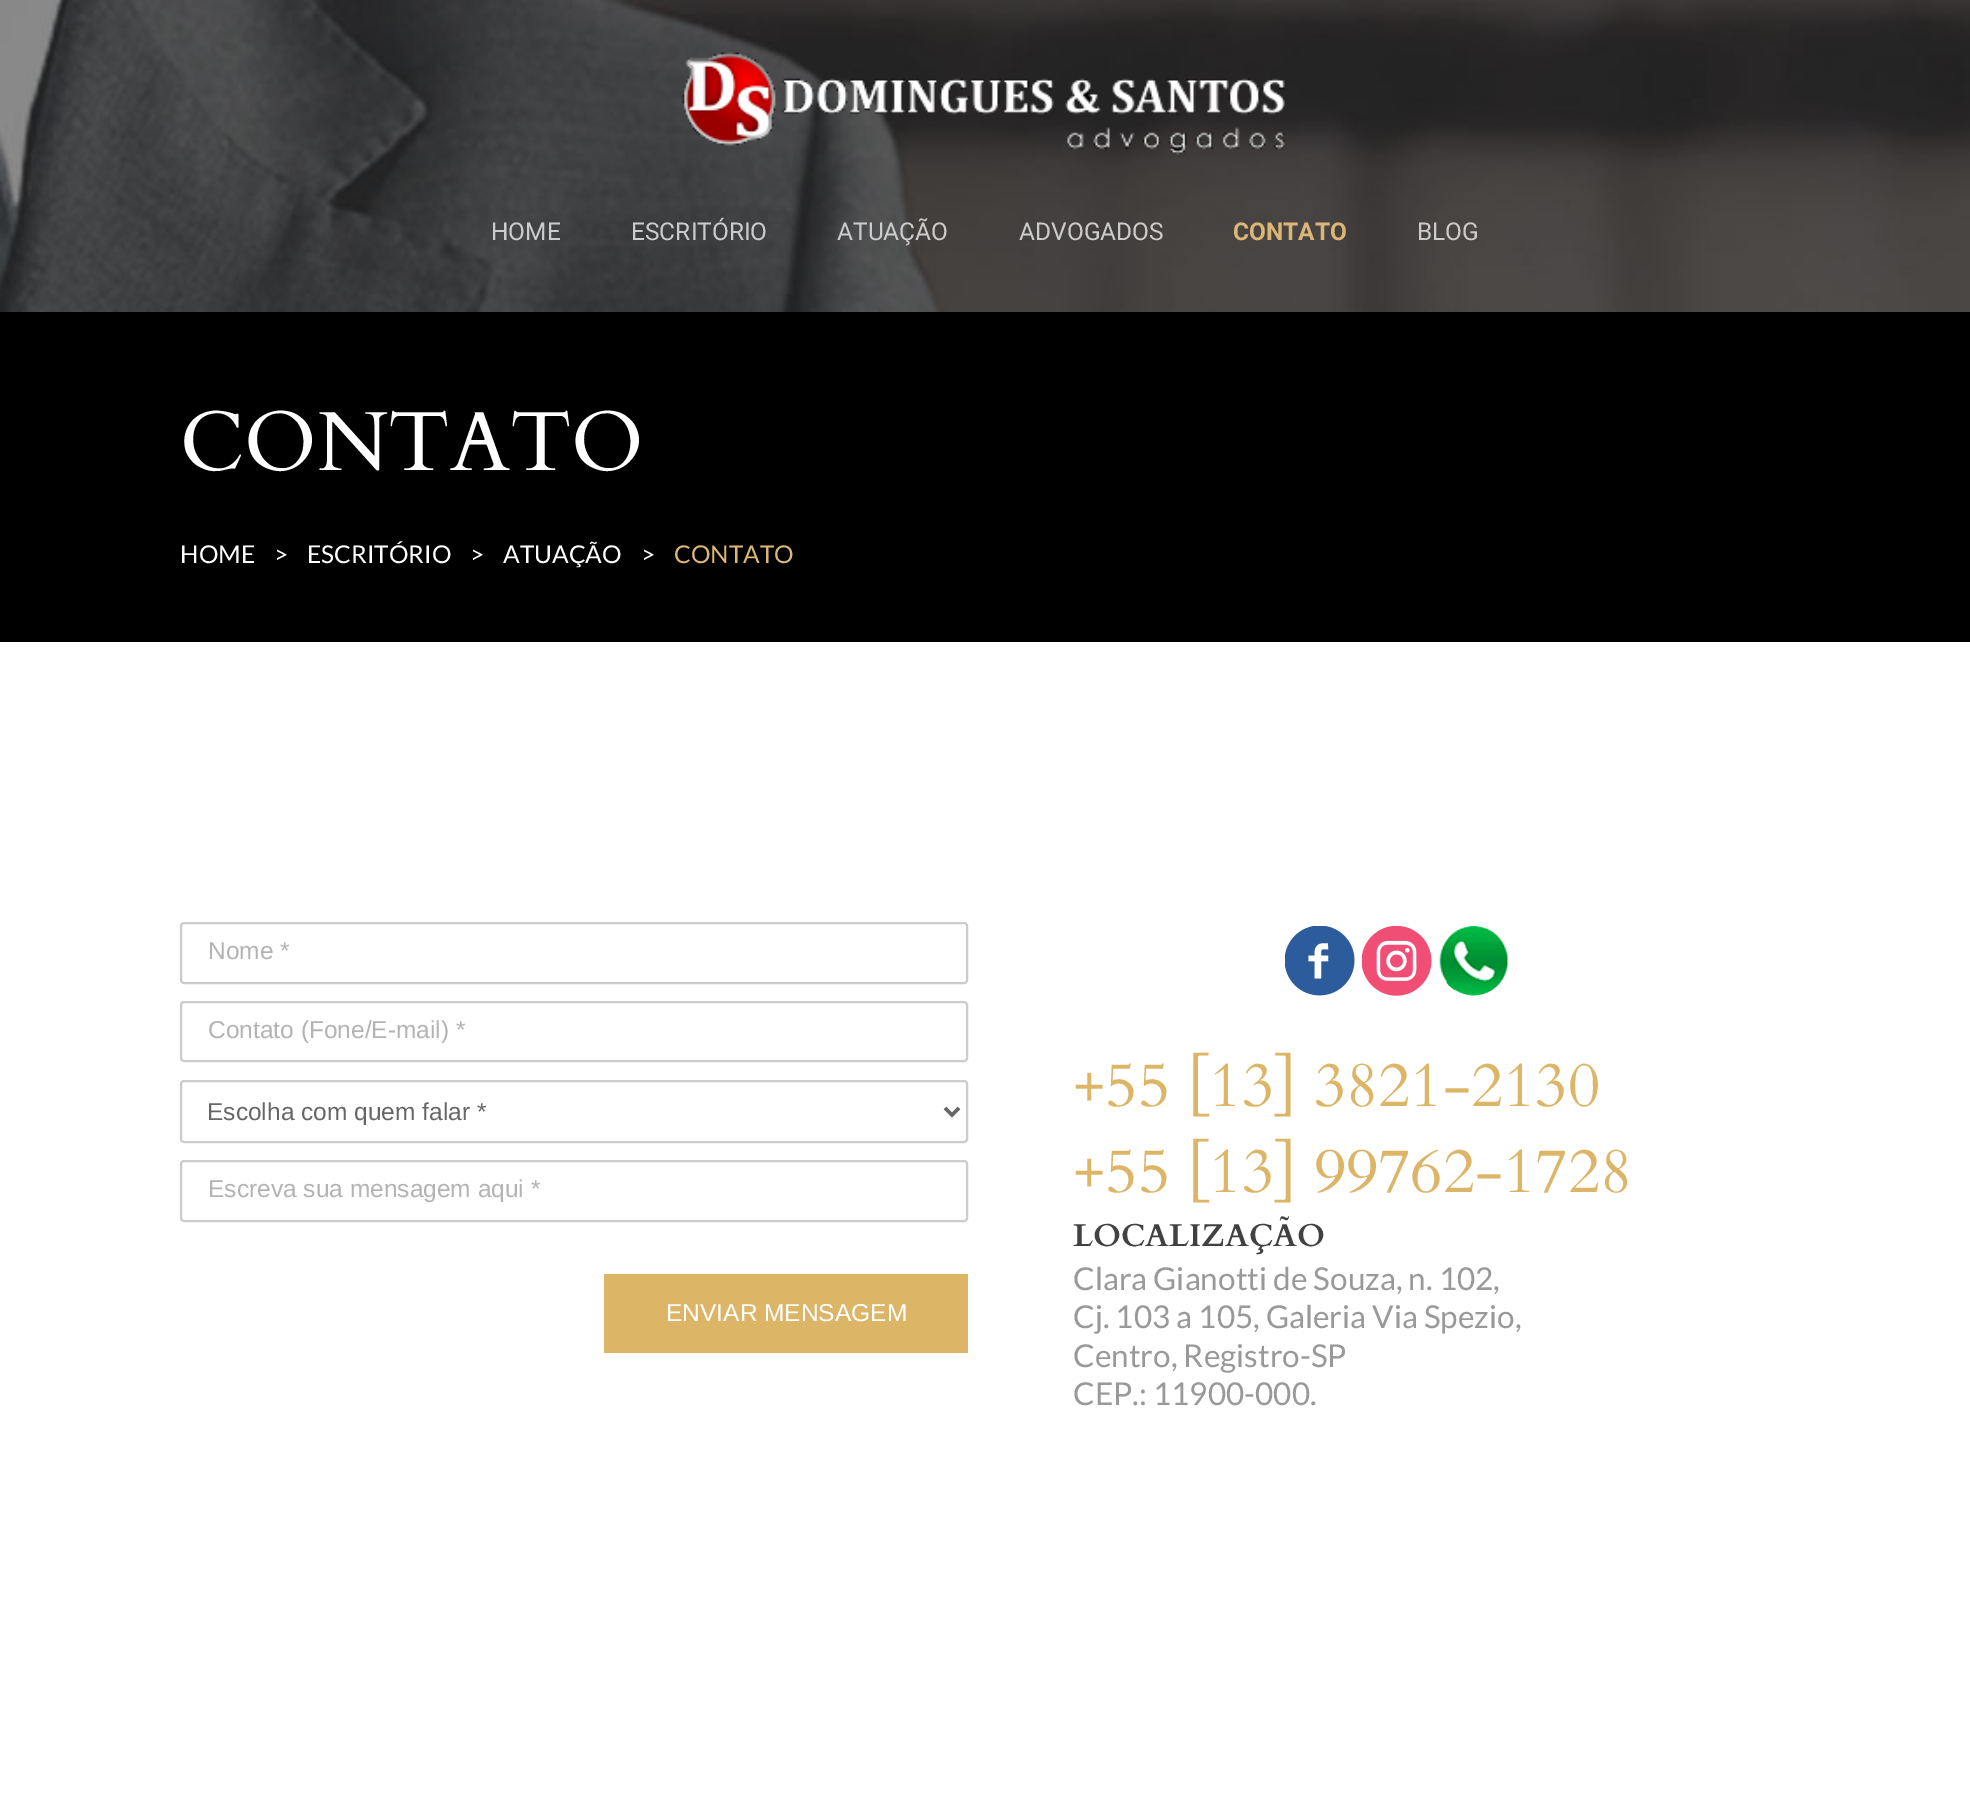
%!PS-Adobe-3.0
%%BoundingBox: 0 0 1970 1796
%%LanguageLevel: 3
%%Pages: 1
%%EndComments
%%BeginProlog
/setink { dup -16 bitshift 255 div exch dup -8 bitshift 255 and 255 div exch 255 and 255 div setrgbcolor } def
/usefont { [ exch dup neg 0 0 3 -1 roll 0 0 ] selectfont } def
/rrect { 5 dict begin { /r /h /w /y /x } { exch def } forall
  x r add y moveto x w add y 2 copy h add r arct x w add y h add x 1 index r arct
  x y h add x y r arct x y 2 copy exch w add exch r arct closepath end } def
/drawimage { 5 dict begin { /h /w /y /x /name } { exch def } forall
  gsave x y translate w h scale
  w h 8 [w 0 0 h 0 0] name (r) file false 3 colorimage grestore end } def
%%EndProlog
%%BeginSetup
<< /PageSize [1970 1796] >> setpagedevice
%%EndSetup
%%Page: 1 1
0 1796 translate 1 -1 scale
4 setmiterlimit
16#FFFFFF setink
0 0 1970 1796 rectfill
(img1.raw) 0 0 1970 312 drawimage
(img2.raw) 682 52 603 103 drawimage
/Roboto-Regular 24.5 usefont
16#CCCCCC setink
[
    [(HOME) 491 240]
    [(ESCRITÓRIO) 631 240]
    [(ATUAÇÃO) 837 240]
    [(ADVOGADOS) 1019 240]
] { aload pop moveto show } forall
/Roboto-Bold 24.5 usefont
16#DCB675 setink
1233 240 moveto (CONTATO) show
/Roboto-Regular 24.5 usefont
16#CCCCCC setink
1417 240 moveto (BLOG) show
16#000000 setink
0 312 1970 330 rectfill
/Cardo-Regular 84 usefont
16#FFFFFF setink
180 470 moveto (CONTATO) show
/Lato-Regular 24.5 usefont
[
    [(HOME) 180 563]
    [(>    ESCRITÓRIO) 274 563]
    [(>) 470 563]
    [(ATUAÇÃO) 503 563]
    [(>) 641 563]
] { aload pop moveto show } forall
16#DCB675 setink
674 563 moveto (CONTATO) show
16#CCCCCC setink
2 setlinewidth
181 923 786 60 3 rrect stroke
/LiberationSans-Regular 24.5 usefont
16#B3B3B3 setink
208 959 moveto (Nome *) show
16#CCCCCC setink
181 1002 786 59 3 rrect stroke
16#B3B3B3 setink
208 1038 moveto (Contato \(Fone/E-mail\) *) show
16#CCCCCC setink
181 1081 786 61 3 rrect stroke
16#666666 setink
3.5 setlinewidth
945 1108 moveto 952 1115 lineto 959 1108 lineto stroke
207 1120 moveto (Escolha com quem falar *) show
16#CCCCCC setink
2 setlinewidth
181 1161 786 60 3 rrect stroke
16#B3B3B3 setink
208 1197 moveto (Escreva sua mensagem aqui *) show
16#DCB666 setink
604 1274 364 79 rectfill
16#FFFFFF setink
666 1321 moveto (ENVIAR MENSAGEM) show
(img3.raw) 1285 926 70 70 drawimage
(img4.raw) 1362 926 70 70 drawimage
(img5.raw) 1439 925 70 71 drawimage
/Cardo-Regular 63 usefont
16#DCB666 setink
1073 1106 moveto (+55 [13] 3821-2130) show
1073 1192 moveto (+55 [13] 99762-1728) show
/Cardo-Bold 31.5 usefont
16#424141 setink
1073 1246 moveto (LOCALIZAÇÃO) show
/Lato-Regular 31.5 usefont
16#999999 setink
[
    [(Clara Gianotti de Souza, n. 102,) 1073 1290]
    [(Cj. 103 a 105, Galeria Via Spezio,) 1073 1328]
    [(Centro, Registro-SP) 1073 1367]
    [(CEP.: 11900-000.) 1073 1405]
] { aload pop moveto show } forall
showpage
%%EOF
